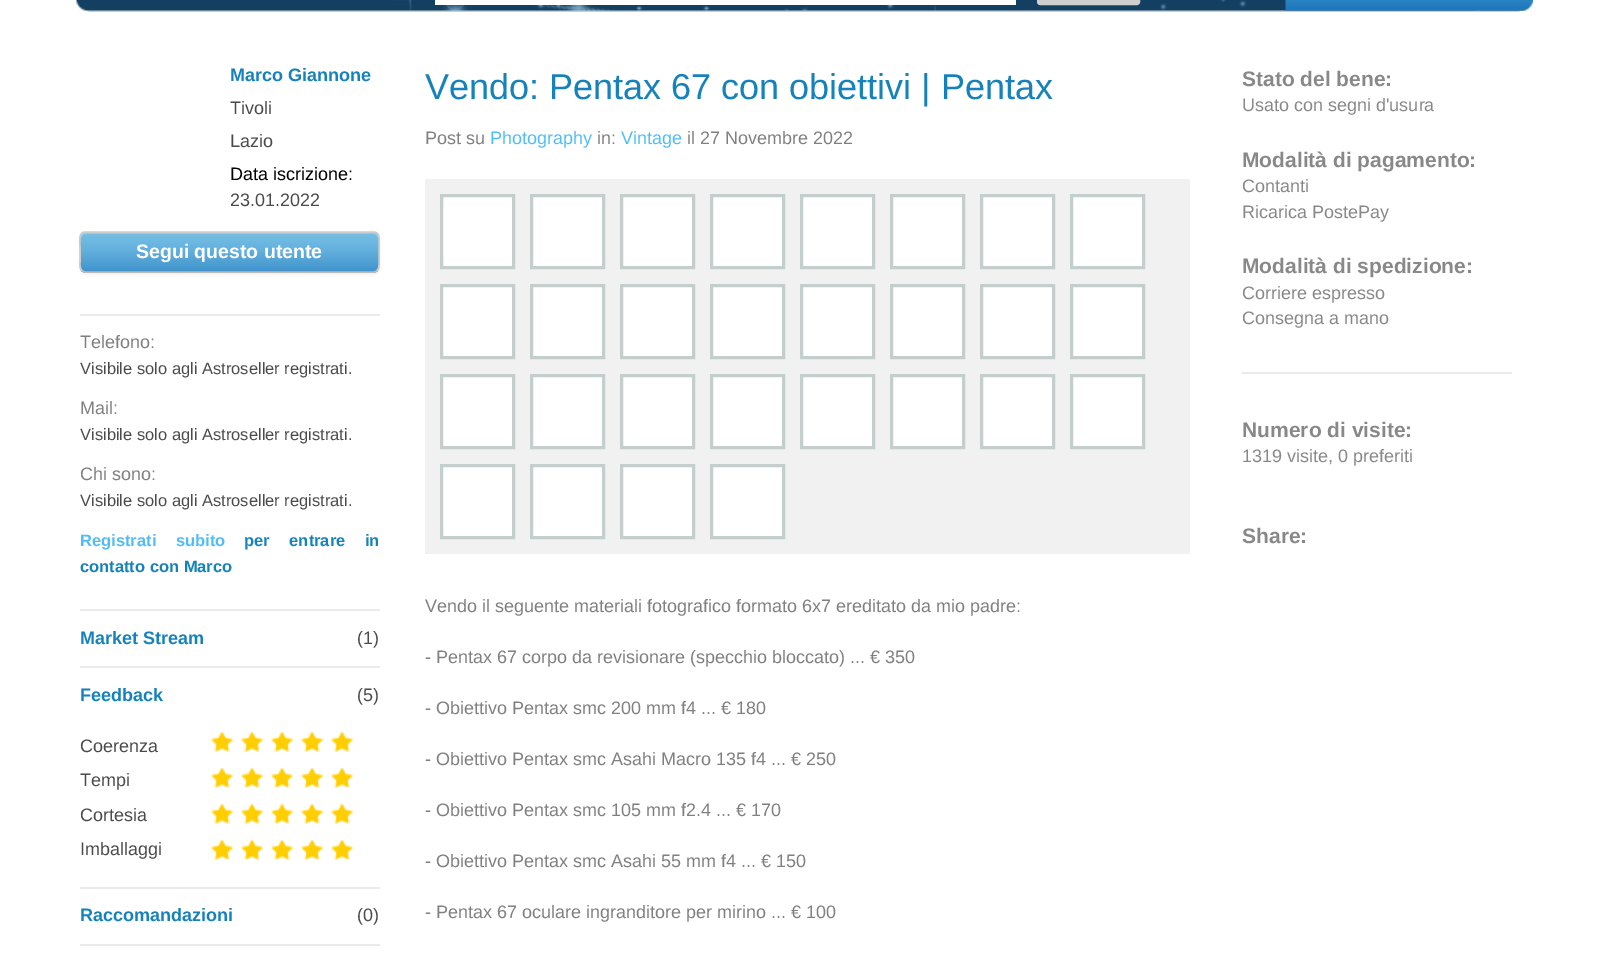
%!PS-Adobe-3.0
%%BoundingBox: 0 0 1608 953
%%LanguageLevel: 3
%%Pages: 1
%%EndComments
%%BeginProlog
/setink { dup -16 bitshift 255 div exch dup -8 bitshift 255 and 255 div exch 255 and 255 div setrgbcolor } def
/usefont { [ exch dup neg 0 0 3 -1 roll 0 0 ] selectfont } def
/setalpha { dup .setfillconstantalpha .setstrokeconstantalpha } def
/rrect { 5 dict begin { /r /h /w /y /x } { exch def } forall
  x r add y moveto x w add y 2 copy h add r arct x w add y h add x 1 index r arct
  x y h add x y r arct x y 2 copy exch w add exch r arct closepath end } def
/softshadow { 12 dict begin { /a /b /q /h /w /y /x } { exch def } forall gsave /was 0 def
  9 -2 -9 { dup b mul 4 div /e exch def 1 sub .425 mul 2.718 exch exp 1 add a .99 .min exch div /now exch def
    1 1 now sub 1 was sub div sub setalpha /was now def
    w h .min e 2 mul add 0 gt { x e sub y e sub w e 2 mul add h e 2 mul add
      q e add b .6 mul add w h .min 2 div e add .min 0 .max rrect fill } if } for grestore end } def
/drawimage { 5 dict begin { /h /w /y /x /name } { exch def } forall
  gsave x y translate w h scale
  w h 8 [w 0 0 h 0 0] name (r) file false 3 colorimage grestore end } def
%%EndProlog
%%BeginSetup
<< /PageSize [1608 953] /PageUsesTransparency true >> setpagedevice
%%EndSetup
%%Page: 1 1
0 .pushpdf14devicefilter
0 953 translate 1 -1 scale
4 setmiterlimit
16#FFFFFF setink
0 0 1608 953 rectfill
(img1.raw) 76 0 1456 12 drawimage
435 0 581 5 rectfill
16#CECECE setink
1038 -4 101 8 2 rrect gsave fill grestore
2 setlinewidth
stroke
(img2.raw) 1285 0 248 11 drawimage
/LiberationSans-Bold 18 usefont
16#1582BB setink
230 81 moveto (Marco Giannone) show
/LiberationSans-Regular 18 usefont
16#4B4B4B setink
230 114 moveto (Tivoli) show
230 147 moveto (Lazio) show
16#000000 setink
230 180 moveto (Data iscrizione:) show
16#4B4B4B setink
230 206 moveto (23.01.2022) show
16#000000 setink
80 233 300 42 6 1.5 0.05 softshadow
16#FAFAFA setink
80 231 300 42 6 rrect fill
(img3.raw) 79 232 301 41 drawimage
16#91CCEB setink
86 234 moveto 374 234 lineto 376 234 378 236 378 238 curveto 378 235 376 233 373 233 curveto 86 233 lineto 83 233 81 235 81 238 curveto 81 236 83 234 86 234 curveto closepath fill
16#BBBBBB setink
1.5 setlinewidth
377 270.5 moveto 376 271.5 375 272 373.5 272 curveto 85.5 272 lineto 84 272 83 271.5 82 270.5 curveto stroke
16#CCCCCC setink
82 270.5 moveto 79.5 268.5 80 265 80 262 curveto 80 247 lineto 80 243 78 232 85.5 232 curveto 373.5 232 lineto 381 232 379 243 379 247 curveto 379 262 lineto 379 265 379.5 268.5 377 270.5 curveto stroke
/LiberationSans-Bold 19.5 usefont
16#FFFFFF setink
136 258 moveto (Segui questo utente) show
16#EAEAEA setink
80 314 300 2 rectfill
/LiberationSans-Regular 18 usefont
16#808080 setink
80 348 moveto (Telefono:) show
/LiberationSans-Regular 16.5 usefont
16#4B4B4B setink
80 374 moveto (Visibile solo agli Astroseller registrati.) show
/LiberationSans-Regular 18 usefont
16#808080 setink
80 414 moveto (Mail:) show
/LiberationSans-Regular 16.5 usefont
16#4B4B4B setink
80 440 moveto (Visibile solo agli Astroseller registrati.) show
/LiberationSans-Regular 18 usefont
16#808080 setink
80 480 moveto (Chi sono:) show
/LiberationSans-Regular 16.5 usefont
16#4B4B4B setink
80 506 moveto (Visibile solo agli Astroseller registrati.) show
/LiberationSans-Bold 16.5 usefont
16#51BDF6 setink
80 546 moveto 15 0 32 (Registrati subito) widthshow
16#1582BB setink
244 546 moveto 15 0 32 (per entrare in) widthshow
80 572 moveto (contatto con Marco) show
16#EAEAEA setink
80 609 300 2 rectfill
/LiberationSans-Bold 18 usefont
16#1582BB setink
80 644 moveto (Market Stream) show
/LiberationSans-Regular 18 usefont
16#4B4B4B setink
357 644 moveto (\(1\)) show
16#EAEAEA setink
80 666 300 2 rectfill
/LiberationSans-Bold 18 usefont
16#1582BB setink
80 701 moveto (Feedback) show
/LiberationSans-Regular 18 usefont
16#4B4B4B setink
357 701 moveto (\(5\)) show
80 752 moveto (Coerenza) show
(img4.raw) 211 731 22 21 drawimage
(img4.raw) 241 731 22 21 drawimage
(img5.raw) 271 731 22 21 drawimage
(img6.raw) 301 731 22 21 drawimage
(img6.raw) 331 731 22 21 drawimage
(img4.raw) 211 767 22 21 drawimage
(img4.raw) 241 767 22 21 drawimage
(img5.raw) 271 767 22 21 drawimage
(img6.raw) 301 767 22 21 drawimage
(img6.raw) 331 767 22 21 drawimage
(img4.raw) 211 803 22 21 drawimage
(img4.raw) 241 803 22 21 drawimage
(img5.raw) 271 803 22 21 drawimage
(img6.raw) 301 803 22 21 drawimage
(img6.raw) 331 803 22 21 drawimage
(img4.raw) 211 839 22 21 drawimage
(img4.raw) 241 839 22 21 drawimage
(img5.raw) 271 839 22 21 drawimage
(img6.raw) 301 839 22 21 drawimage
(img6.raw) 331 839 22 21 drawimage
[
    [(Tempi) 80 786]
    [(Cortesia) 80 821]
    [(Imballaggi) 80 855]
] { aload pop moveto show } forall
16#EAEAEA setink
80 887 300 2 rectfill
/LiberationSans-Bold 18 usefont
16#1582BB setink
80 921 moveto (Raccomandazioni) show
/LiberationSans-Regular 18 usefont
16#4B4B4B setink
357 921 moveto (\(0\)) show
16#EAEAEA setink
80 944 300 2 rectfill
/LiberationSans-Regular 36 usefont
16#1582BB setink
425 99 moveto (Vendo: Pentax 67 con obiettivi | Pentax) show
/LiberationSans-Regular 18 usefont
16#808080 setink
425 144 moveto (Post su) show
16#51BDF6 setink
490 144 moveto (Photography) show
16#808080 setink
597 144 moveto (in:) show
16#51BDF6 setink
621 144 moveto (Vintage) show
16#808080 setink
687 144 moveto (il 27 Novembre 2022) show
16#F1F1F1 setink
425 179 765 375 rectfill
16#FFFFFF setink
441.5 195.5 moveto 513.5 195.5 lineto 513.5 267.5 lineto 441.5 267.5 lineto closepath gsave fill grestore
16#C3CECD setink
3 setlinewidth
stroke
16#FFFFFF setink
531.5 195.5 moveto 603.5 195.5 lineto 603.5 267.5 lineto 531.5 267.5 lineto closepath gsave fill grestore
16#C3CECD setink
stroke
16#FFFFFF setink
621.5 195.5 moveto 693.5 195.5 lineto 693.5 267.5 lineto 621.5 267.5 lineto closepath gsave fill grestore
16#C3CECD setink
stroke
16#FFFFFF setink
711.5 195.5 moveto 783.5 195.5 lineto 783.5 267.5 lineto 711.5 267.5 lineto closepath gsave fill grestore
16#C3CECD setink
stroke
16#FFFFFF setink
801.5 195.5 moveto 873.5 195.5 lineto 873.5 267.5 lineto 801.5 267.5 lineto closepath gsave fill grestore
16#C3CECD setink
stroke
16#FFFFFF setink
891.5 195.5 moveto 963.5 195.5 lineto 963.5 267.5 lineto 891.5 267.5 lineto closepath gsave fill grestore
16#C3CECD setink
stroke
16#FFFFFF setink
981.5 195.5 moveto 1053.5 195.5 lineto 1053.5 267.5 lineto 981.5 267.5 lineto closepath gsave fill grestore
16#C3CECD setink
stroke
16#FFFFFF setink
1071.5 195.5 moveto 1143.5 195.5 lineto 1143.5 267.5 lineto 1071.5 267.5 lineto closepath gsave fill grestore
16#C3CECD setink
stroke
16#FFFFFF setink
441.5 285.5 moveto 513.5 285.5 lineto 513.5 357.5 lineto 441.5 357.5 lineto closepath gsave fill grestore
16#C3CECD setink
stroke
16#FFFFFF setink
531.5 285.5 moveto 603.5 285.5 lineto 603.5 357.5 lineto 531.5 357.5 lineto closepath gsave fill grestore
16#C3CECD setink
stroke
16#FFFFFF setink
621.5 285.5 moveto 693.5 285.5 lineto 693.5 357.5 lineto 621.5 357.5 lineto closepath gsave fill grestore
16#C3CECD setink
stroke
16#FFFFFF setink
711.5 285.5 moveto 783.5 285.5 lineto 783.5 357.5 lineto 711.5 357.5 lineto closepath gsave fill grestore
16#C3CECD setink
stroke
16#FFFFFF setink
801.5 285.5 moveto 873.5 285.5 lineto 873.5 357.5 lineto 801.5 357.5 lineto closepath gsave fill grestore
16#C3CECD setink
stroke
16#FFFFFF setink
891.5 285.5 moveto 963.5 285.5 lineto 963.5 357.5 lineto 891.5 357.5 lineto closepath gsave fill grestore
16#C3CECD setink
stroke
16#FFFFFF setink
981.5 285.5 moveto 1053.5 285.5 lineto 1053.5 357.5 lineto 981.5 357.5 lineto closepath gsave fill grestore
16#C3CECD setink
stroke
16#FFFFFF setink
1071.5 285.5 moveto 1143.5 285.5 lineto 1143.5 357.5 lineto 1071.5 357.5 lineto closepath gsave fill grestore
16#C3CECD setink
stroke
16#FFFFFF setink
441.5 375.5 moveto 513.5 375.5 lineto 513.5 447.5 lineto 441.5 447.5 lineto closepath gsave fill grestore
16#C3CECD setink
stroke
16#FFFFFF setink
531.5 375.5 moveto 603.5 375.5 lineto 603.5 447.5 lineto 531.5 447.5 lineto closepath gsave fill grestore
16#C3CECD setink
stroke
16#FFFFFF setink
621.5 375.5 moveto 693.5 375.5 lineto 693.5 447.5 lineto 621.5 447.5 lineto closepath gsave fill grestore
16#C3CECD setink
stroke
16#FFFFFF setink
711.5 375.5 moveto 783.5 375.5 lineto 783.5 447.5 lineto 711.5 447.5 lineto closepath gsave fill grestore
16#C3CECD setink
stroke
16#FFFFFF setink
801.5 375.5 moveto 873.5 375.5 lineto 873.5 447.5 lineto 801.5 447.5 lineto closepath gsave fill grestore
16#C3CECD setink
stroke
16#FFFFFF setink
891.5 375.5 moveto 963.5 375.5 lineto 963.5 447.5 lineto 891.5 447.5 lineto closepath gsave fill grestore
16#C3CECD setink
stroke
16#FFFFFF setink
981.5 375.5 moveto 1053.5 375.5 lineto 1053.5 447.5 lineto 981.5 447.5 lineto closepath gsave fill grestore
16#C3CECD setink
stroke
16#FFFFFF setink
1071.5 375.5 moveto 1143.5 375.5 lineto 1143.5 447.5 lineto 1071.5 447.5 lineto closepath gsave fill grestore
16#C3CECD setink
stroke
16#FFFFFF setink
441.5 465.5 moveto 513.5 465.5 lineto 513.5 537.5 lineto 441.5 537.5 lineto closepath gsave fill grestore
16#C3CECD setink
stroke
16#FFFFFF setink
531.5 465.5 moveto 603.5 465.5 lineto 603.5 537.5 lineto 531.5 537.5 lineto closepath gsave fill grestore
16#C3CECD setink
stroke
16#FFFFFF setink
621.5 465.5 moveto 693.5 465.5 lineto 693.5 537.5 lineto 621.5 537.5 lineto closepath gsave fill grestore
16#C3CECD setink
stroke
16#FFFFFF setink
711.5 465.5 moveto 783.5 465.5 lineto 783.5 537.5 lineto 711.5 537.5 lineto closepath gsave fill grestore
16#C3CECD setink
stroke
16#808080 setink
[
    [(Vendo il seguente materiali fotografico formato 6x7 ereditato da mio padre:) 425 612]
    [(- Pentax 67 corpo da revisionare \(specchio bloccato\) ... € 350) 425 663]
    [(- Obiettivo Pentax smc 200 mm f4 ... € 180) 425 714]
    [(- Obiettivo Pentax smc Asahi Macro 135 f4 ... € 250) 425 765]
    [(- Obiettivo Pentax smc 105 mm f2.4 ... € 170) 425 816]
    [(- Obiettivo Pentax smc Asahi 55 mm f4 ... € 150) 425 867]
    [(- Pentax 67 oculare ingranditore per mirino ... € 100) 425 918]
] { aload pop moveto show } forall
/LiberationSans-Bold 21 usefont
16#888888 setink
1242 86 moveto (Stato del bene:) show
/LiberationSans-Regular 18 usefont
1242 111 moveto (Usato con segni d'usura) show
/LiberationSans-Bold 21 usefont
1242 167 moveto (Modalità di pagamento:) show
/LiberationSans-Regular 18 usefont
1242 192 moveto (Contanti) show
1242 218 moveto (Ricarica PostePay) show
/LiberationSans-Bold 21 usefont
1242 273 moveto (Modalità di spedizione:) show
/LiberationSans-Regular 18 usefont
1242 299 moveto (Corriere espresso) show
1242 324 moveto (Consegna a mano) show
16#EAEAEA setink
1242 372 270 2 rectfill
/LiberationSans-Bold 21 usefont
16#888888 setink
1242 437 moveto (Numero di visite:) show
/LiberationSans-Regular 18 usefont
1242 462 moveto (1319 visite, 0 preferiti) show
/LiberationSans-Bold 21 usefont
1242 543 moveto (Share:) show
.poppdf14devicefilter showpage
%%EOF
